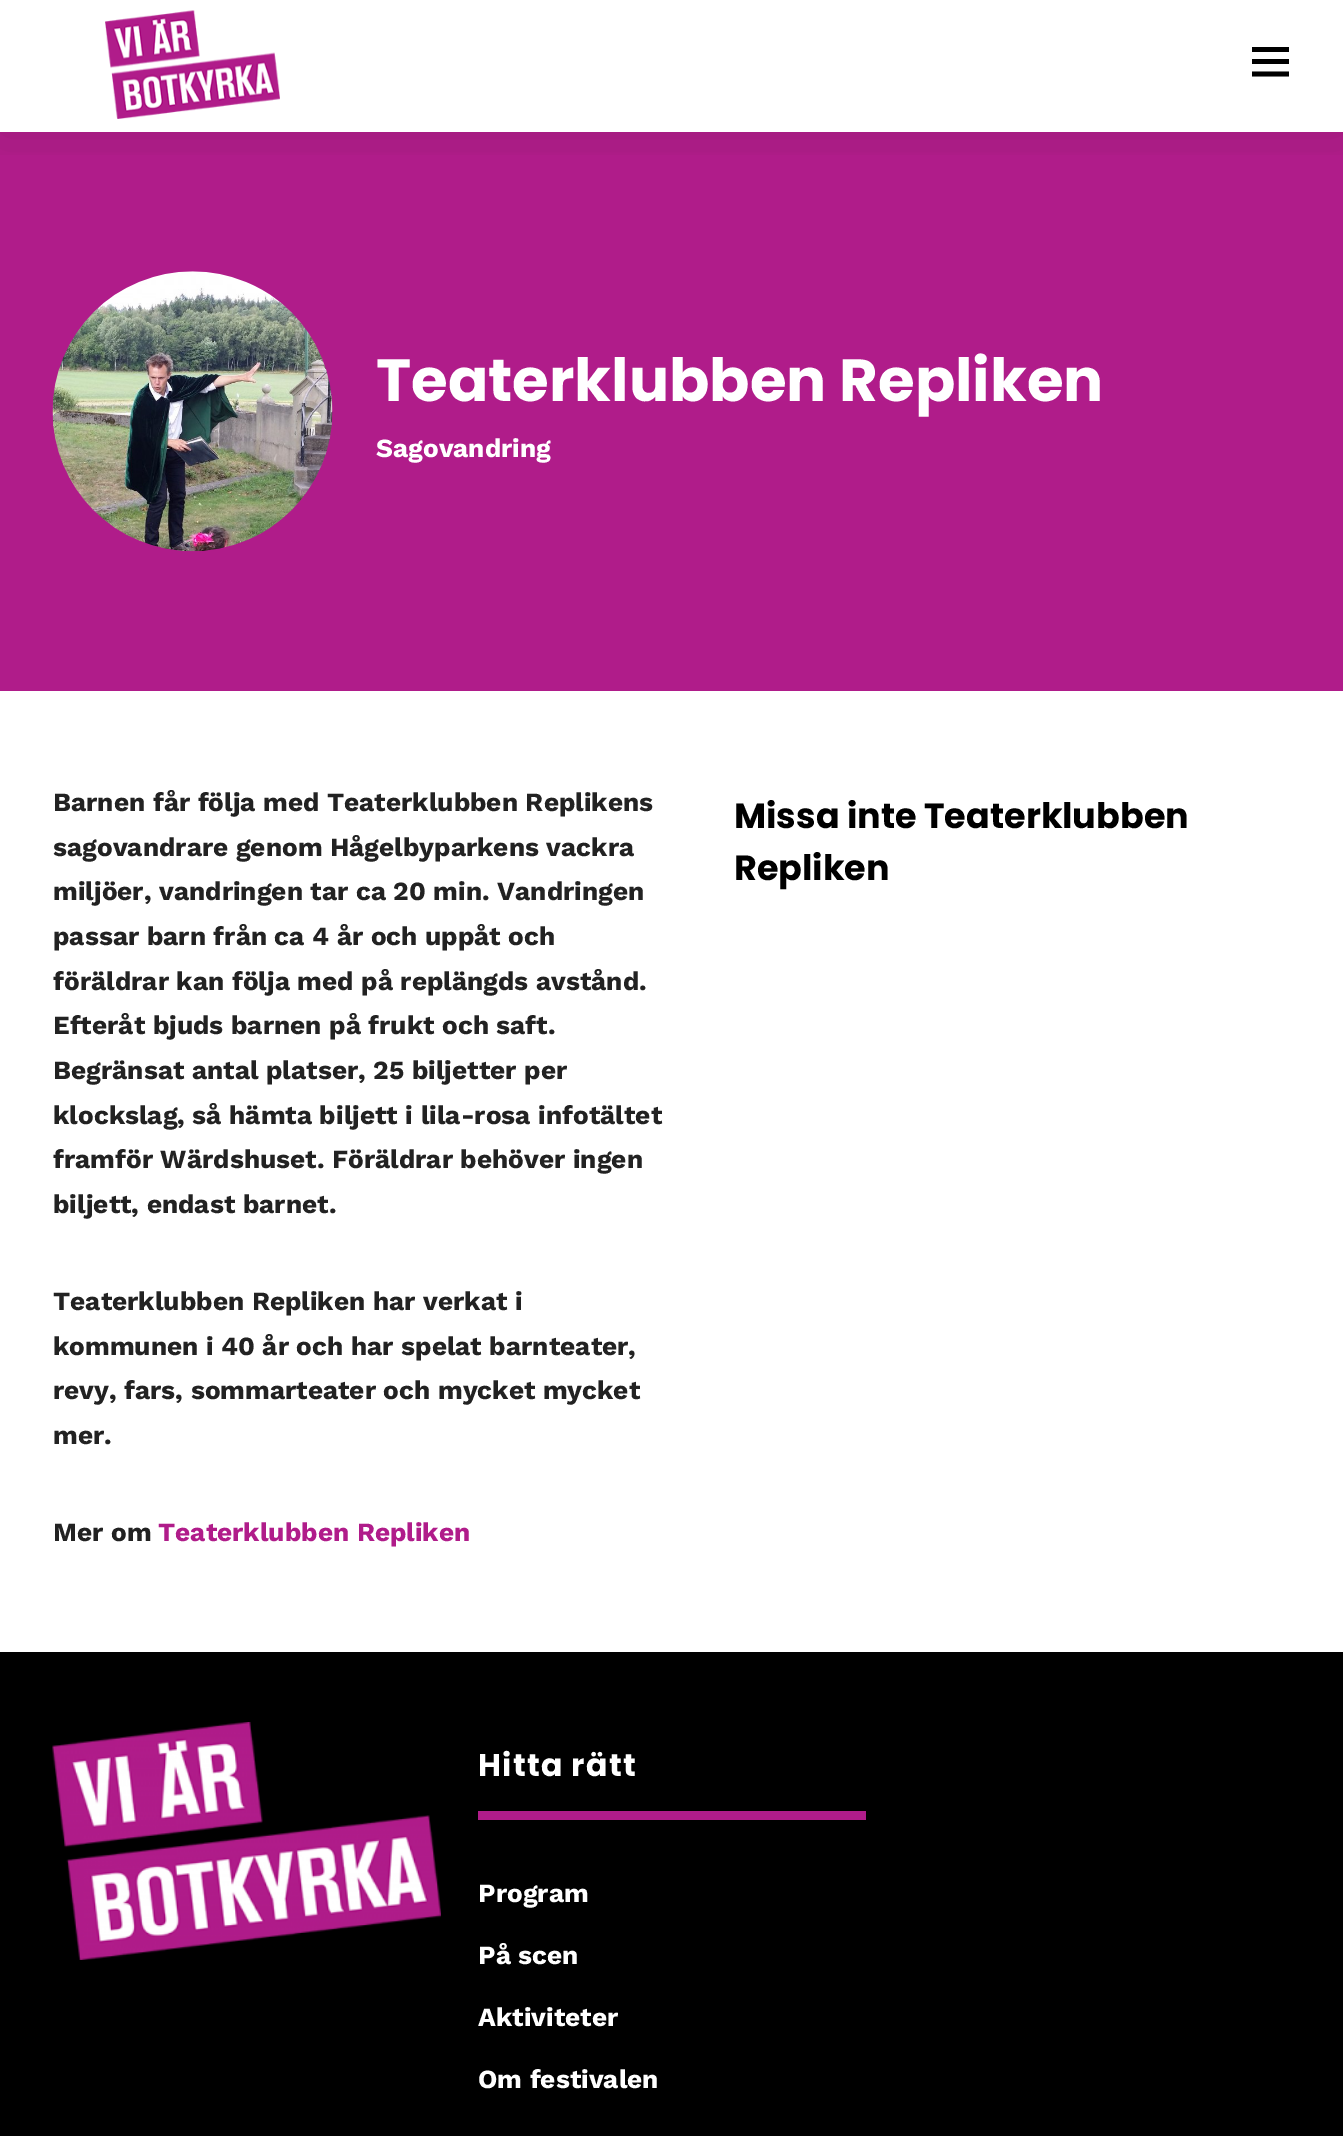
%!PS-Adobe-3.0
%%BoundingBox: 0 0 1343 2136
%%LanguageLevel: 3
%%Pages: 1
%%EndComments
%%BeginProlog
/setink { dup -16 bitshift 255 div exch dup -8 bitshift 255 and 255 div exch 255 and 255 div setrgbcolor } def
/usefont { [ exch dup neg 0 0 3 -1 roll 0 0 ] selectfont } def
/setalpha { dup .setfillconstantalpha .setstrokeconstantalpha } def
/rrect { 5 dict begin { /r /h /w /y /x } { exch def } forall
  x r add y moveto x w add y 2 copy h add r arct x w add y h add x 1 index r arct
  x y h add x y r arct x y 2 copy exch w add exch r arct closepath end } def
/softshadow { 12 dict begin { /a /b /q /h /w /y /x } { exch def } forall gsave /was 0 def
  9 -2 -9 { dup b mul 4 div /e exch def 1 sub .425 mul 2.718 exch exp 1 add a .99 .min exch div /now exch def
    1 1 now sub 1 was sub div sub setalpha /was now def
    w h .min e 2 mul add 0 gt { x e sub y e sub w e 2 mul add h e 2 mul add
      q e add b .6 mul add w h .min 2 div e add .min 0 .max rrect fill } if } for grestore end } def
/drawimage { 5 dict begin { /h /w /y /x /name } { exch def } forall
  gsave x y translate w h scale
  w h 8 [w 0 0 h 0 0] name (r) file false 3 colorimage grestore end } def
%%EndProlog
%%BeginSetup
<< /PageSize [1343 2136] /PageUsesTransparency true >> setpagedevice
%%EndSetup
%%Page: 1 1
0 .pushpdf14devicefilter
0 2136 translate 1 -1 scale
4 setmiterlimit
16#FFFFFF setink
0 0 1343 2136 rectfill
16#B01C8A setink
0 132 1343 559 rectfill
gsave
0 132 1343 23 rectclip
16#000000 setink
0 2 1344 131 0 26 0.1 softshadow
grestore
16#FFFFFF setink
0 131 1343 1 rectfill
(img1.raw) 105 10 175 109 drawimage
16#000000 setink
1289 47 moveto 1289 52 lineto 1252 52 lineto 1252 47 lineto closepath 1252 64 moveto 1289 64 lineto 1289 59 lineto 1252 59 lineto closepath 1252 76.5 moveto 1289 76.5 lineto 1289 71.5 lineto 1252 71.5 lineto closepath fill
(img2.raw) 52 271 281 281 drawimage
/Poppins-Bold 59.5 usefont
16#FFFFFF setink
376 401 moveto (Teaterklubben Repliken) show
/WorkSans-Bold 26.25 usefont
376 457 moveto (Sagovandring) show
16#222222 setink
[
    [(Barnen får följa med Teaterklubben Replikens) 53 811]
    [(sagovandrare genom Hågelbyparkens vackra) 53 856]
    [(miljöer, vandringen tar ca 20 min. Vandringen) 53 900]
    [(passar barn från ca 4 år och uppåt och) 53 945]
    [(föräldrar kan följa med på replängds avstånd.) 53 990]
    [(Efteråt bjuds barnen på frukt och saft.) 53 1034]
    [(Begränsat antal platser, 25 biljetter per) 53 1079]
    [(klockslag, så hämta biljett i lila-rosa infotältet) 53 1124]
    [(framför Wärdshuset. Föräldrar behöver ingen) 53 1168]
    [(biljett, endast barnet.) 53 1213]
    [(Teaterklubben Repliken har verkat i) 53 1310]
    [(kommunen i 40 år och har spelat barnteater,) 53 1355]
    [(revy, fars, sommarteater och mycket mycket) 53 1399]
    [(mer.) 53 1444]
    [(Mer om) 53 1541]
] { aload pop moveto show } forall
16#B01C8A setink
158 1541 moveto (Teaterklubben Repliken) show
/Poppins-Bold 35 usefont
16#000000 setink
734 828 moveto (Missa inte Teaterklubben) show
734 880 moveto (Repliken) show
0 1652 1343 484 rectfill
(img3.raw) 52 1722 389 238 drawimage
16#B01C8A setink
478 1811 388 9 rectfill
/Poppins-Bold 31.5 usefont
16#FFFFFF setink
478 1776 moveto 1.25 0 (Hitta rätt) ashow
/WorkSans-Bold 26.25 usefont
[
    [(Program) 478 1902]
    [(På scen) 478 1964]
    [(Aktiviteter) 478 2026]
    [(Om festivalen) 478 2088]
] { aload pop moveto show } forall
.poppdf14devicefilter showpage
%%EOF
